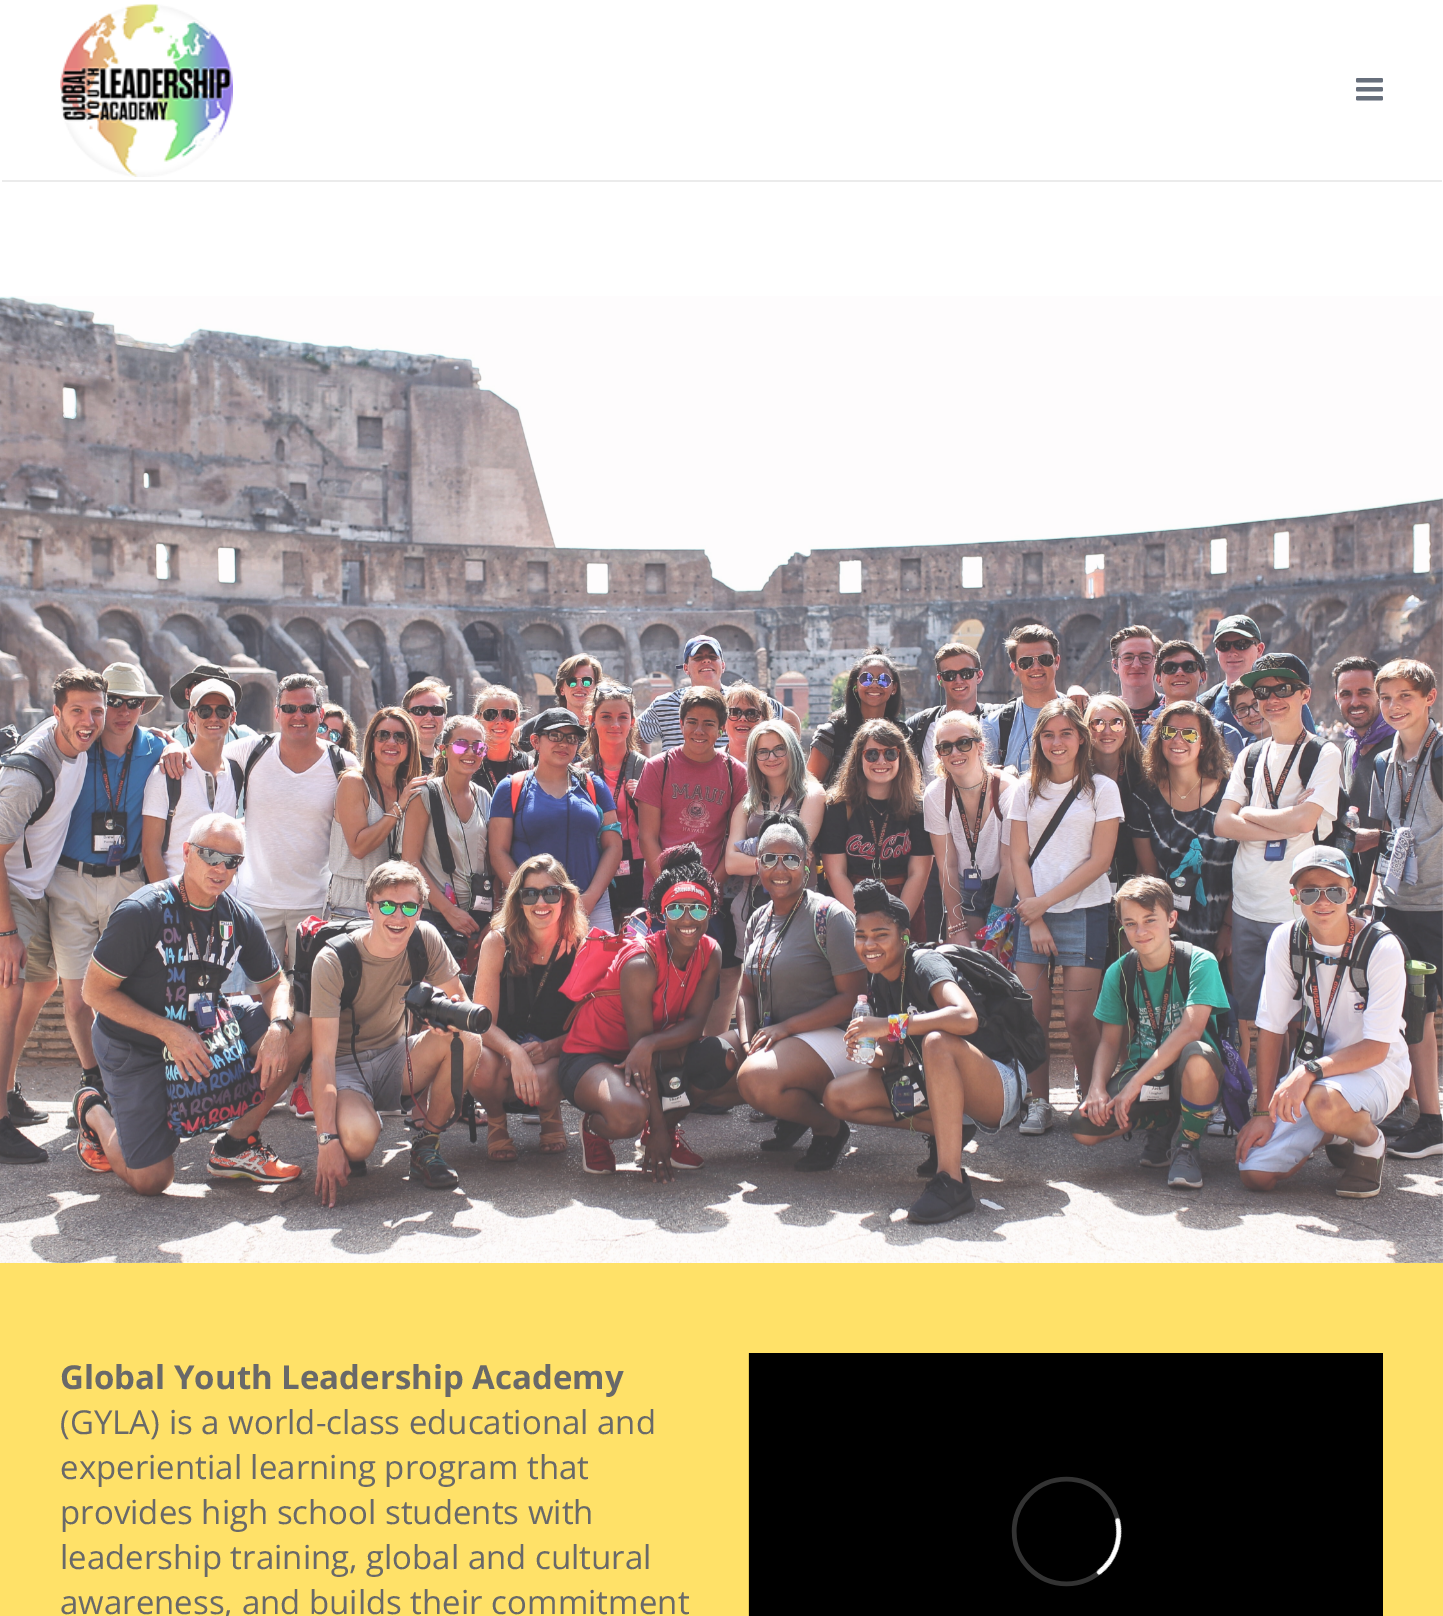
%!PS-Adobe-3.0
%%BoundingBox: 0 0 1443 1616
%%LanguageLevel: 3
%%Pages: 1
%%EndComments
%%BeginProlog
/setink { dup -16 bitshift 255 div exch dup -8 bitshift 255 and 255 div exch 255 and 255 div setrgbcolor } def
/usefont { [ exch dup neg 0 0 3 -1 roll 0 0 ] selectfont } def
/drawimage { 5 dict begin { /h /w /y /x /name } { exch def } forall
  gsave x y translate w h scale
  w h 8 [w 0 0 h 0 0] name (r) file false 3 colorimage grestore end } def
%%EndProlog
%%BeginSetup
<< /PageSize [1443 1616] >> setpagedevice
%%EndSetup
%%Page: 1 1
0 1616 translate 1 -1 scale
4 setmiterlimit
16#FFFFFF setink
0 0 1443 1616 rectfill
16#EBEBEB setink
2 180 1440 2 rectfill
(img1.raw) 60 3 173 174 drawimage
(img2.raw) 1356 78 27 23 drawimage
(img3.raw) 0 296 1443 967 drawimage
16#FFE168 setink
0 1263 1443 353 rectfill
/OpenSans-Bold 33 usefont
16#696969 setink
60 1389 moveto (Global Youth Leadership Academy) show
/OpenSans-Regular 33 usefont
[
    [(\(GYLA\) is a world-class educational and) 60 1434]
    [(experiential learning program that) 60 1479]
    [(provides high school students with) 60 1524]
    [(leadership training, global and cultural) 60 1569]
    [(awareness, and builds their commitment) 60 1614]
] { aload pop moveto show } forall
(img4.raw) 748 1353 635 263 drawimage
showpage
%%EOF
